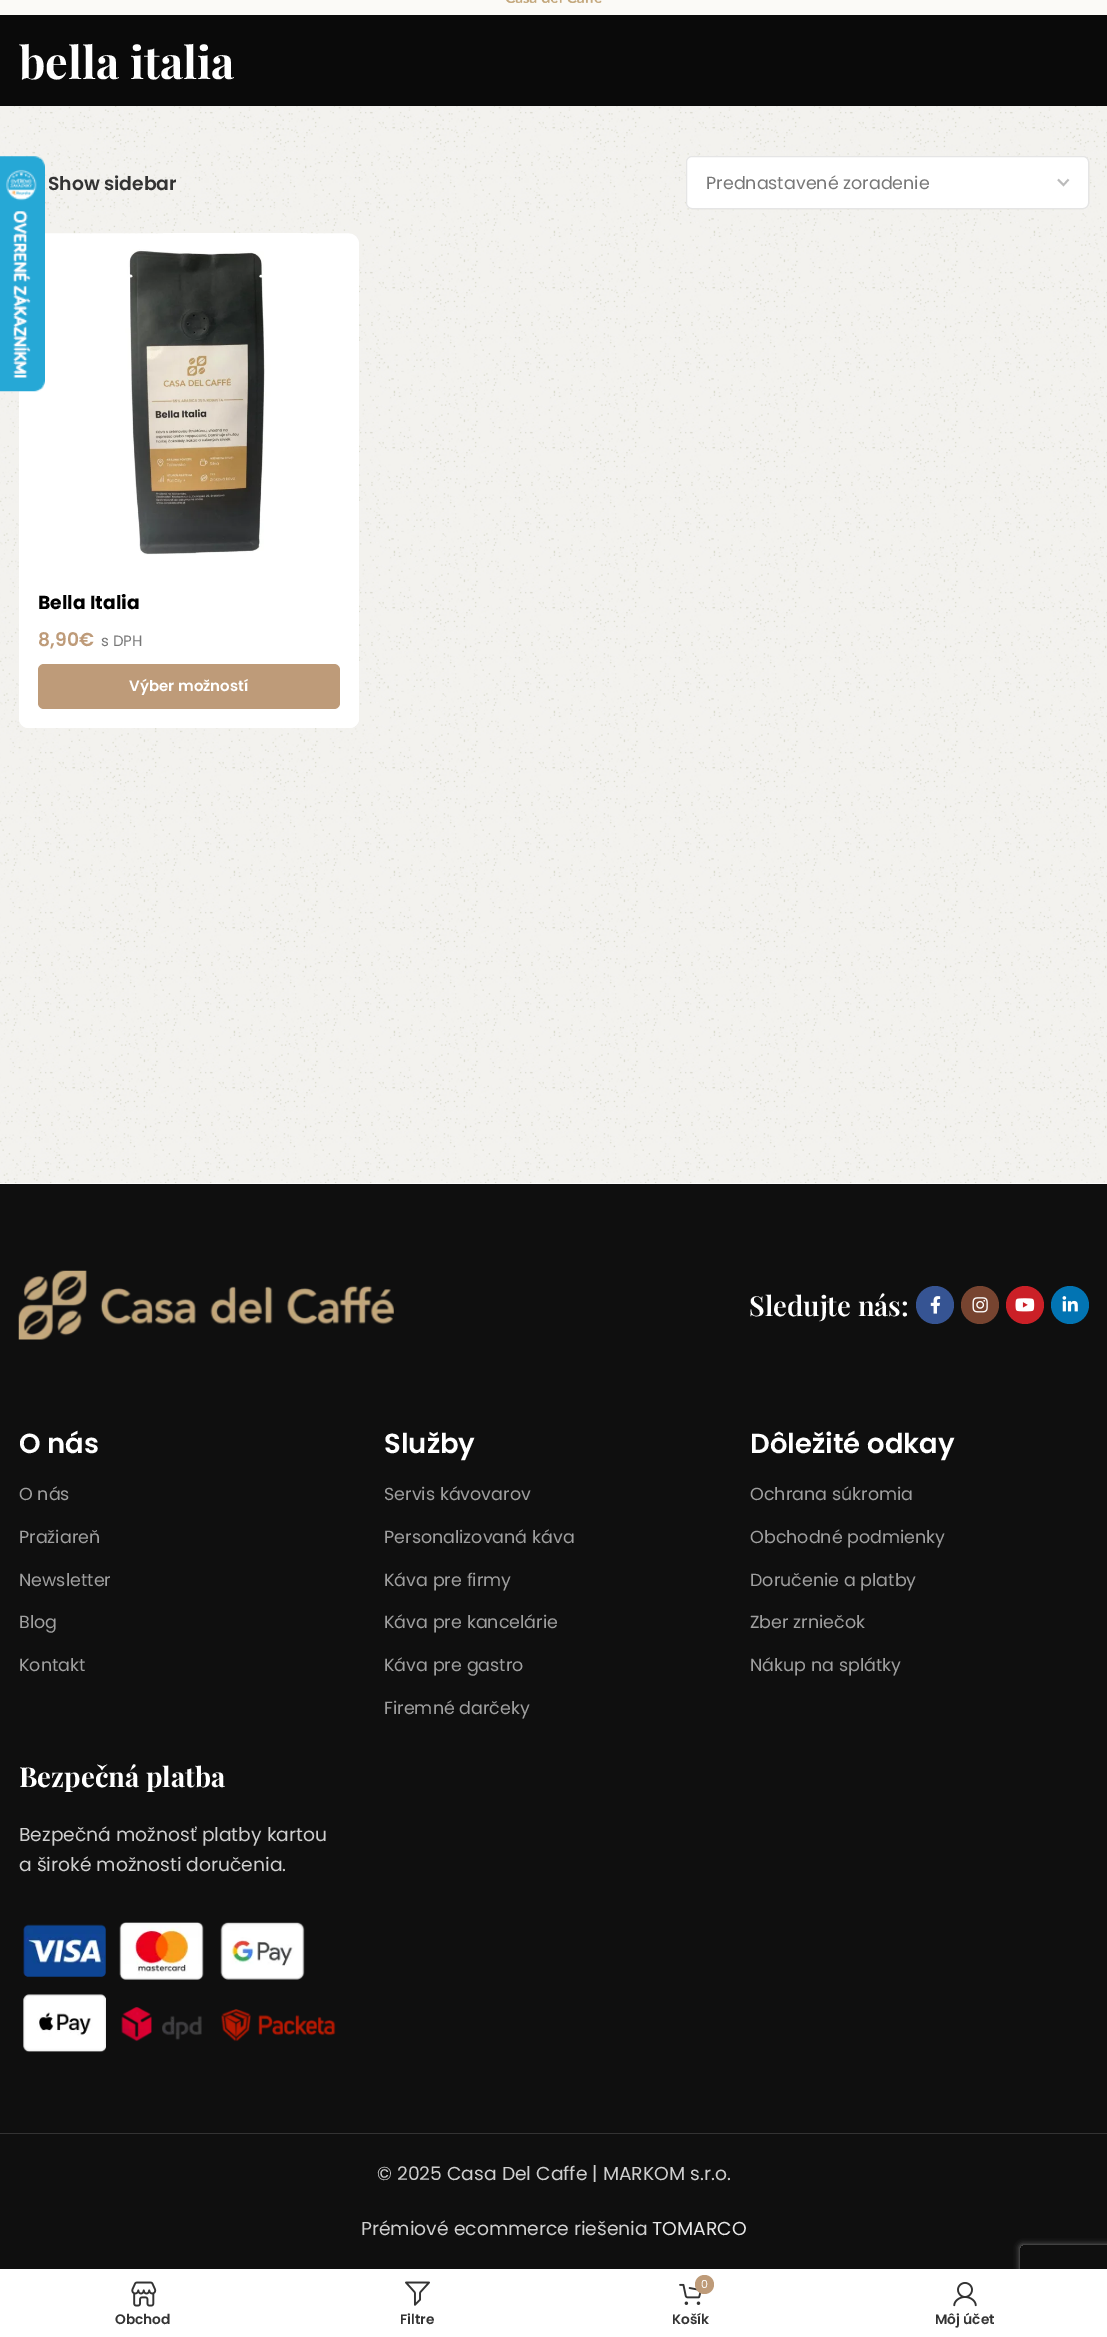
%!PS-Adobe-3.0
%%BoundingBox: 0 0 1107 2337
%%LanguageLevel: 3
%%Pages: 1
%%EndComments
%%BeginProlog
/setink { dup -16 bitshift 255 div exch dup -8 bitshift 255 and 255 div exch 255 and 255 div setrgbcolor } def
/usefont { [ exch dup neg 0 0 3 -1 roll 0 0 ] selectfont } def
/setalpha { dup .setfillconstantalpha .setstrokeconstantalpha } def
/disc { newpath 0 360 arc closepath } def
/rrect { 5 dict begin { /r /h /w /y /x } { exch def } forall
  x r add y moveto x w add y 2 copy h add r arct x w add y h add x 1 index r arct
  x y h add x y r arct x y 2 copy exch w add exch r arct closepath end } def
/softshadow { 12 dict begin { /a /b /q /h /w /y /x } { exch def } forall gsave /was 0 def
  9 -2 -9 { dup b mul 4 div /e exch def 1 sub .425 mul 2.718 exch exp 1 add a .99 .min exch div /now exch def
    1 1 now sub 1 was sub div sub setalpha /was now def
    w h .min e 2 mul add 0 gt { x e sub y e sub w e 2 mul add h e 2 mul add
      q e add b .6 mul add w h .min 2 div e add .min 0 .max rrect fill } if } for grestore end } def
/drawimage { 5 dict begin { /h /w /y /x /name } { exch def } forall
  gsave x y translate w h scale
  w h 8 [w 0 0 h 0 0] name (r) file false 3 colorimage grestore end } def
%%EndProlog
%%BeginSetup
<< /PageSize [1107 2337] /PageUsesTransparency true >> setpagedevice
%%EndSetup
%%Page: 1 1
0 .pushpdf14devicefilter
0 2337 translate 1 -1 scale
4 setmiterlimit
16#FFFFFF setink
0 0 1107 2337 rectfill
16#FBFAF7 setink
0 0 1107 15 rectfill
(img1.raw) 506 0 96 3 drawimage
(img2.raw) 0 106 1107 1078 drawimage
16#0A0A0A setink
0 15 1107 91 rectfill
/PlayfairDisplay-Bold 45 usefont
16#FFFFFF setink
19 79 moveto (bella italia) show
/Poppins-SemiBold 18.75 usefont
16#333333 setink
48 190 moveto (Show sidebar) show
16#FFFFFF setink
686 156 403 53 6 rrect fill
16#BBBBBB setink
1.8 setlinewidth
1058 179.5 moveto 1063.5 185 lineto 1068.5 179.5 lineto stroke
0.1 setalpha
16#000000 setink
1 setlinewidth
686.5 156.5 402 52 5.5 rrect stroke
/Poppins-Regular 17.5 usefont
1 setalpha
16#777777 setink
706 189 moveto (Prednastavené zoradenie) show
16#FFFFFF setink
19 234 340 494 10 rrect fill
(img3.raw) 19 233 339 322 drawimage
19 574 moveto 359 574 lineto 359 718 lineto 359 723.5 354.5 728 349 728 curveto 29 728 lineto 23.5 728 19 723.5 19 718 curveto closepath fill
/Poppins-Bold 18.75 usefont
16#000000 setink
38 609 moveto (Bella Italia) show
/Poppins-SemiBold 18.75 usefont
16#BE9B79 setink
38 646 moveto (8,90€) show
/Poppins-Regular 15 usefont
16#777777 setink
101 646 moveto (s DPH) show
16#BE9B79 setink
38 664 302 45 6 rrect fill
/Poppins-SemiBold 15 usefont
16#FFFFFF setink
129 691 moveto (Výber možností) show
16#0F0F0F setink
0 1184 1107 1085 rectfill
(img4.raw) 18 1270 376 70 drawimage
/PlayfairDisplay-SemiBold 27.5 usefont
16#FFFFFF setink
749 1316 moveto (Sledujte nás:) show
16#365493 setink
935 1305 19 disc fill
(img5.raw) 930 1296 11 18 drawimage
16#774430 setink
980 1305 19 disc fill
(img6.raw) 972 1297 16 16 drawimage
16#CB2027 setink
1025 1305 19 disc fill
(img7.raw) 1015 1298 20 14 drawimage
16#0274B3 setink
1070 1305 19 disc fill
(img8.raw) 1062 1296 16 16 drawimage
/Poppins-SemiBold 27.5 usefont
16#FFFFFF setink
19 1453 moveto (O nás) show
/Poppins-Regular 17.5 usefont
16#9F9F9F setink
[
    [(O nás) 19 1500]
    [(Pražiareň) 19 1543]
    [(Newsletter) 19 1586]
    [(Blog) 19 1628]
    [(Kontakt) 19 1671]
] { aload pop moveto show } forall
/Poppins-SemiBold 27.5 usefont
16#FFFFFF setink
384 1453 moveto (Služby) show
/Poppins-Regular 17.5 usefont
16#9F9F9F setink
[
    [(Servis kávovarov) 384 1500]
    [(Personalizovaná káva) 384 1543]
    [(Káva pre firmy) 384 1586]
    [(Káva pre kancelárie) 384 1628]
    [(Káva pre gastro) 384 1671]
    [(Firemné darčeky) 384 1714]
] { aload pop moveto show } forall
/Poppins-SemiBold 27.5 usefont
16#FFFFFF setink
750 1453 moveto (Dôležité odkay) show
/Poppins-Regular 17.5 usefont
16#9F9F9F setink
[
    [(Ochrana súkromia) 750 1500]
    [(Obchodné podmienky) 750 1543]
    [(Doručenie a platby) 750 1586]
    [(Zber zrniečok) 750 1628]
    [(Nákup na splátky) 750 1671]
] { aload pop moveto show } forall
/PlayfairDisplay-Bold 27.5 usefont
16#FFFFFF setink
19 1787 moveto (Bezpečná platba) show
/Poppins-Regular 18.75 usefont
16#CFCFCF setink
19 1841 moveto (Bezpečná možnosť platby kartou) show
19 1871 moveto (a široké možnosti doručenia.) show
(img9.raw) 23 1922 313 130 drawimage
16#333333 setink
0 2133 1107 1 rectfill
16#CFCFCF setink
377 2180 moveto (© 2025 Casa Del Caffe | MARKOM s.r.o.) show
361 2235 moveto (Prémiové ecommerce riešenia) show
16#E7E7E7 setink
652 2235 moveto (TOMARCO) show
(img10.raw) 0 156 45 236 drawimage
16#000000 setink
0 2269 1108 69 0 5.5 0.12 softshadow
gsave
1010 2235 moveto 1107 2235 lineto 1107 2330 lineto 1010 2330 lineto closepath 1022.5 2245 moveto 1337.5 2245 lineto 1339 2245 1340 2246 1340 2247.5 curveto 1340 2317.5 lineto 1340 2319 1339 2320 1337.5 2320 curveto 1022.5 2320 lineto 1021 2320 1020 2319 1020 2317.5 curveto 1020 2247.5 lineto 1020 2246 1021 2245 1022.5 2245 curveto closepath eoclip newpath
16#808080 setink
1020 2245 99 75 2.5 3 1 softshadow
grestore
16#FFFFFF setink
0 2269 1107 68 rectfill
(img11.raw) 131 2281 26 26 drawimage
/Poppins-SemiBold 13.75 usefont
16#333333 setink
115 2324 moveto (Obchod) show
(img12.raw) 405 2281 25 25 drawimage
400 2324 moveto (Filtre) show
(img13.raw) 679 2283 23 22 drawimage
16#BE9B79 setink
704.5 2284.5 9.5 disc fill
/Poppins-Regular 11 usefont
16#FFFFFF setink
701 2288 moveto (0) show
/Poppins-SemiBold 13.75 usefont
16#333333 setink
672 2324 moveto (Košík) show
(img14.raw) 953 2282 24 25 drawimage
935 2324 moveto (Môj účet) show
.poppdf14devicefilter showpage
%%EOF
